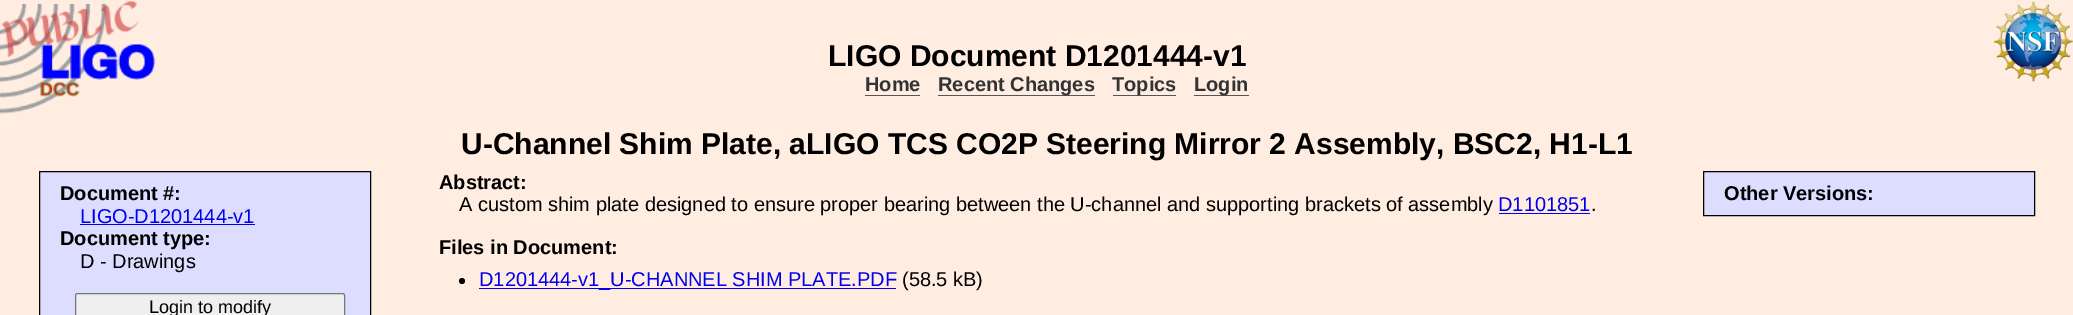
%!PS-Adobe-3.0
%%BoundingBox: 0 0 2073 315
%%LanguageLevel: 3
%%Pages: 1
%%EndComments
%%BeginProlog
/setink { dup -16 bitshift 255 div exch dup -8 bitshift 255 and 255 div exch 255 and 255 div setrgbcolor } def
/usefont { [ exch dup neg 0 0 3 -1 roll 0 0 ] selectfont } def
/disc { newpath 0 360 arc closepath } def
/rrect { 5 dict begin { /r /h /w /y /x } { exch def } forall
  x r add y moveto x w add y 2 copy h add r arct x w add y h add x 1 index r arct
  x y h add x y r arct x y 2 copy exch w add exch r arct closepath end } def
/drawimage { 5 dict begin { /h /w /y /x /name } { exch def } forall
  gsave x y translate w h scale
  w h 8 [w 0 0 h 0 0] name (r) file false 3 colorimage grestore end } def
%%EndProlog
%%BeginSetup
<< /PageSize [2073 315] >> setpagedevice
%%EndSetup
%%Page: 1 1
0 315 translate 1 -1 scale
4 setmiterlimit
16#FFEDE2 setink
0 0 2073 315 rectfill
(img1.raw) 0 1 2073 113 drawimage
/LiberationSans-Bold 30 usefont
16#000000 setink
828 66 moveto (LIGO Document D1201444-v1) show
/LiberationSans-Bold 20 usefont
16#333333 setink
865 91 moveto (Home) show
16#555555 setink
865 95 55 1 rectfill
938 95 157 1 rectfill
16#333333 setink
938 91 moveto (Recent Changes) show
16#555555 setink
1113 95 63 1 rectfill
16#333333 setink
1112 91 moveto (Topics) show
16#555555 setink
1194 95 55 1 rectfill
16#333333 setink
1194 91 moveto (Login) show
/LiberationSans-Bold 30 usefont
16#000000 setink
461 154 moveto (U-Channel Shim Plate, aLIGO TCS CO2P Steering Mirror 2 Assembly, BSC2, H1-L1) show
16#DDDDFF setink
39.5 171.5 moveto 370.5 171.5 lineto 370.5 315.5 lineto 39.5 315.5 lineto closepath gsave fill grestore
16#000000 setink
stroke
/LiberationSans-Bold 20 usefont
60 200 moveto (Document #:) show
/LiberationSans-Regular 20 usefont
16#0000EE setink
80 223 moveto (LIGO-D1201444-v1) show
80 224 175 1 rectfill
/LiberationSans-Bold 20 usefont
16#000000 setink
60 245 moveto (Document type:) show
/LiberationSans-Regular 20 usefont
80 268 moveto (D - Drawings) show
16#EFEFEF setink
75.5 293.5 269 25 2 rrect gsave fill grestore
16#767676 setink
stroke
/LiberationSans-Regular 18 usefont
16#000000 setink
149 313 moveto (Login to modify) show
/LiberationSans-Bold 20 usefont
439 189 moveto (Abstract:) show
/LiberationSans-Regular 20 usefont
459 211 moveto (A custom shim plate designed to ensure proper bearing between the U-channel and supporting brackets of assembly) show
16#0000EE setink
1498 211 moveto (D1101851) show
1499 213 91 1 rectfill
16#000000 setink
1591 211 moveto (.) show
16#DDDDFF setink
1703.5 171.5 moveto 2034.5 171.5 lineto 2034.5 215.5 lineto 1703.5 215.5 lineto closepath gsave fill grestore
16#000000 setink
stroke
/LiberationSans-Bold 20 usefont
1724 200 moveto (Other Versions:) show
439 254 moveto (Files in Document:) show
462 281 3 disc fill
16#0000EE setink
479 288 417 1 rectfill
/LiberationSans-Regular 20 usefont
479 286 moveto (D1201444-v1_U-CHANNEL SHIM PLATE.PDF) show
16#000000 setink
902 286 moveto (\(58.5 kB\)) show
showpage
%%EOF
